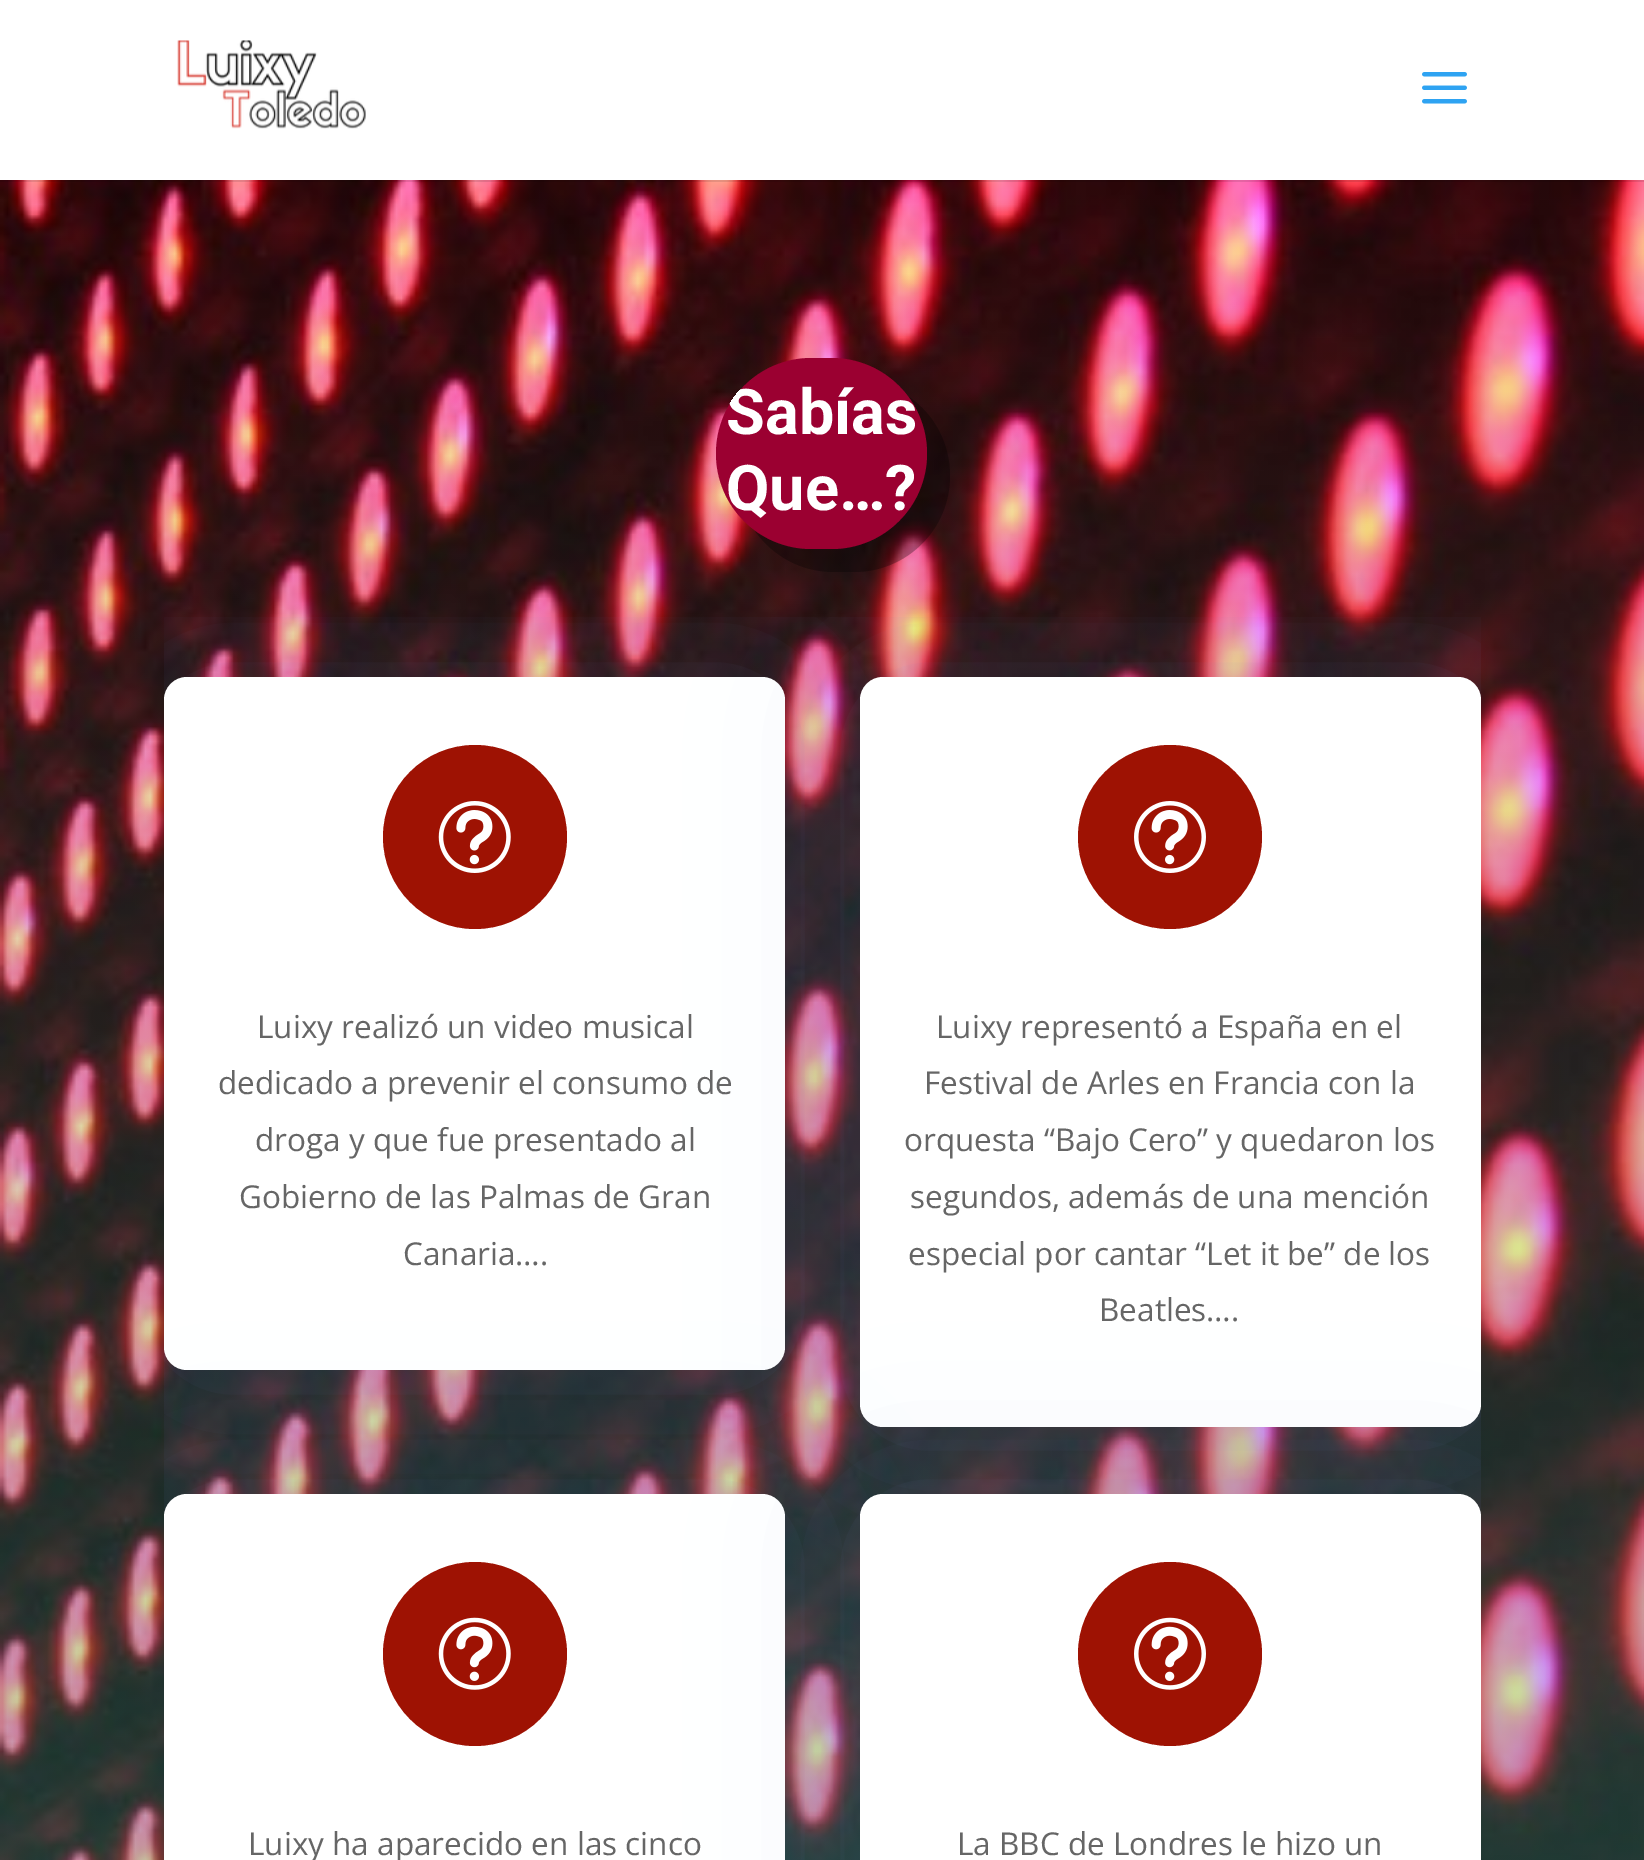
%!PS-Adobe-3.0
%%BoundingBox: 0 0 1644 1860
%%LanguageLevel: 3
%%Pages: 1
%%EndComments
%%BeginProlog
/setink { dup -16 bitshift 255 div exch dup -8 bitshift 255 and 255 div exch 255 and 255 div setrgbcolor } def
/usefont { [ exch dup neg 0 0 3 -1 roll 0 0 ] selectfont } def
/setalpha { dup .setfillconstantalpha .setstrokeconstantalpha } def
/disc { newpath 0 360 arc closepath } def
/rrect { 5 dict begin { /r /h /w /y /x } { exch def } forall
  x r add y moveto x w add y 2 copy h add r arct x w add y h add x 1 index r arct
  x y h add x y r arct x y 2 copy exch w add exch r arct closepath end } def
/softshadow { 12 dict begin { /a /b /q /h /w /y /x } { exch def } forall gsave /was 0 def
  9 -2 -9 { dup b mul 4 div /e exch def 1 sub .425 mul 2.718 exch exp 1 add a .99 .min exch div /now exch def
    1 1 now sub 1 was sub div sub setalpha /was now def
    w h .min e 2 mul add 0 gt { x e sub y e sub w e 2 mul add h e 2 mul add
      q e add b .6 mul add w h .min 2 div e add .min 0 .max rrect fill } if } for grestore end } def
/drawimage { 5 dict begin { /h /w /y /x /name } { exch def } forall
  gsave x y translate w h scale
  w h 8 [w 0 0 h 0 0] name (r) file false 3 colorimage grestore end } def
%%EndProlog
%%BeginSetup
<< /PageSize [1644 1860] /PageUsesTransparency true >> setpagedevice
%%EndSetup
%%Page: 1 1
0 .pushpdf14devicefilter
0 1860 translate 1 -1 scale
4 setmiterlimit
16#FFFFFF setink
0 0 1644 1860 rectfill
(img3.raw) 0 180 1644 1680 drawimage
0.1 setalpha
16#000000 setink
0 180 moveto 0 182 lineto 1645 182 lineto 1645 2 lineto 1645 180 lineto closepath fill
1 setalpha
(img1.raw) 177 40 189 89 drawimage
(img2.raw) 1422 72 45 32 drawimage
0.3 setalpha
755 531 moveto 773 556 801 572 834 572 curveto 854 572 lineto 907 572 950 529 950 476 curveto 950 443 934 414 909 397 curveto 920 413 927 432 927 453 curveto 927 506 884 549 831 549 curveto 811 549 lineto 790 549 771 542 755 531 curveto closepath fill
1 setalpha
16#9B0031 setink
716 358 211 191 95.5 rrect fill
gsave
716 358 211 191 95.5 rrect clip newpath
/Roboto-Bold 63 usefont
16#FFFFFF setink
726 434 moveto (Sabías) show
grestore
/Roboto-Bold 63 usefont
16#FFFFFF setink
726 510 moveto (Que…?) show
gsave
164 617 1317 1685 rectclip
16#6E82D0 setink
164 682 621 693 23 79 0.18 softshadow
grestore
164 677 621 693 23 rrect fill
16#9E1203 setink
475 837 92 disc fill
(img4.raw) 438 801 73 72 drawimage
/OpenSans-Regular 31.5 usefont
16#666666 setink
[
    [(Luixy realizó un video musical) 257 1038]
    [(dedicado a prevenir el consumo de) 218 1094]
    [(droga y que fue presentado al) 255 1151]
    [(Gobierno de las Palmas de Gran) 239 1208]
    [(Canaria….) 403 1265]
] { aload pop moveto show } forall
gsave
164 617 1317 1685 rectclip
16#6E82D0 setink
860 682 621 749 23 79 0.18 softshadow
grestore
16#FFFFFF setink
860 677 621 750 23 rrect fill
16#9E1203 setink
1170 837 92 disc fill
(img5.raw) 1134 801 72 72 drawimage
16#666666 setink
[
    [(Luixy representó a España en el) 936 1038]
    [(Festival de Arles en Francia con la) 924 1094]
    [(orquesta “Bajo Cero” y quedaron los) 904 1151]
    [(segundos, además de una mención) 910 1208]
    [(especial por cantar “Let it be” de los) 908 1265]
    [(Beatles….) 1099 1321]
] { aload pop moveto show } forall
gsave
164 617 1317 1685 rectclip
16#6E82D0 setink
164 1499 621 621 23 79 0.18 softshadow
grestore
16#FFFFFF setink
164 1494 621 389 23 rrect fill
16#9E1203 setink
475 1654 92 disc fill
(img6.raw) 438 1617 73 73 drawimage
16#666666 setink
248 1855 moveto (Luixy ha aparecido en las cinco) show
gsave
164 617 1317 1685 rectclip
16#6E82D0 setink
860 1499 621 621 23 79 0.18 softshadow
grestore
16#FFFFFF setink
860 1494 621 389 23 rrect fill
16#9E1203 setink
1170 1654 92 disc fill
(img7.raw) 1134 1617 72 73 drawimage
16#666666 setink
957 1855 moveto (La BBC de Londres le hizo un) show
.poppdf14devicefilter showpage
%%EOF
